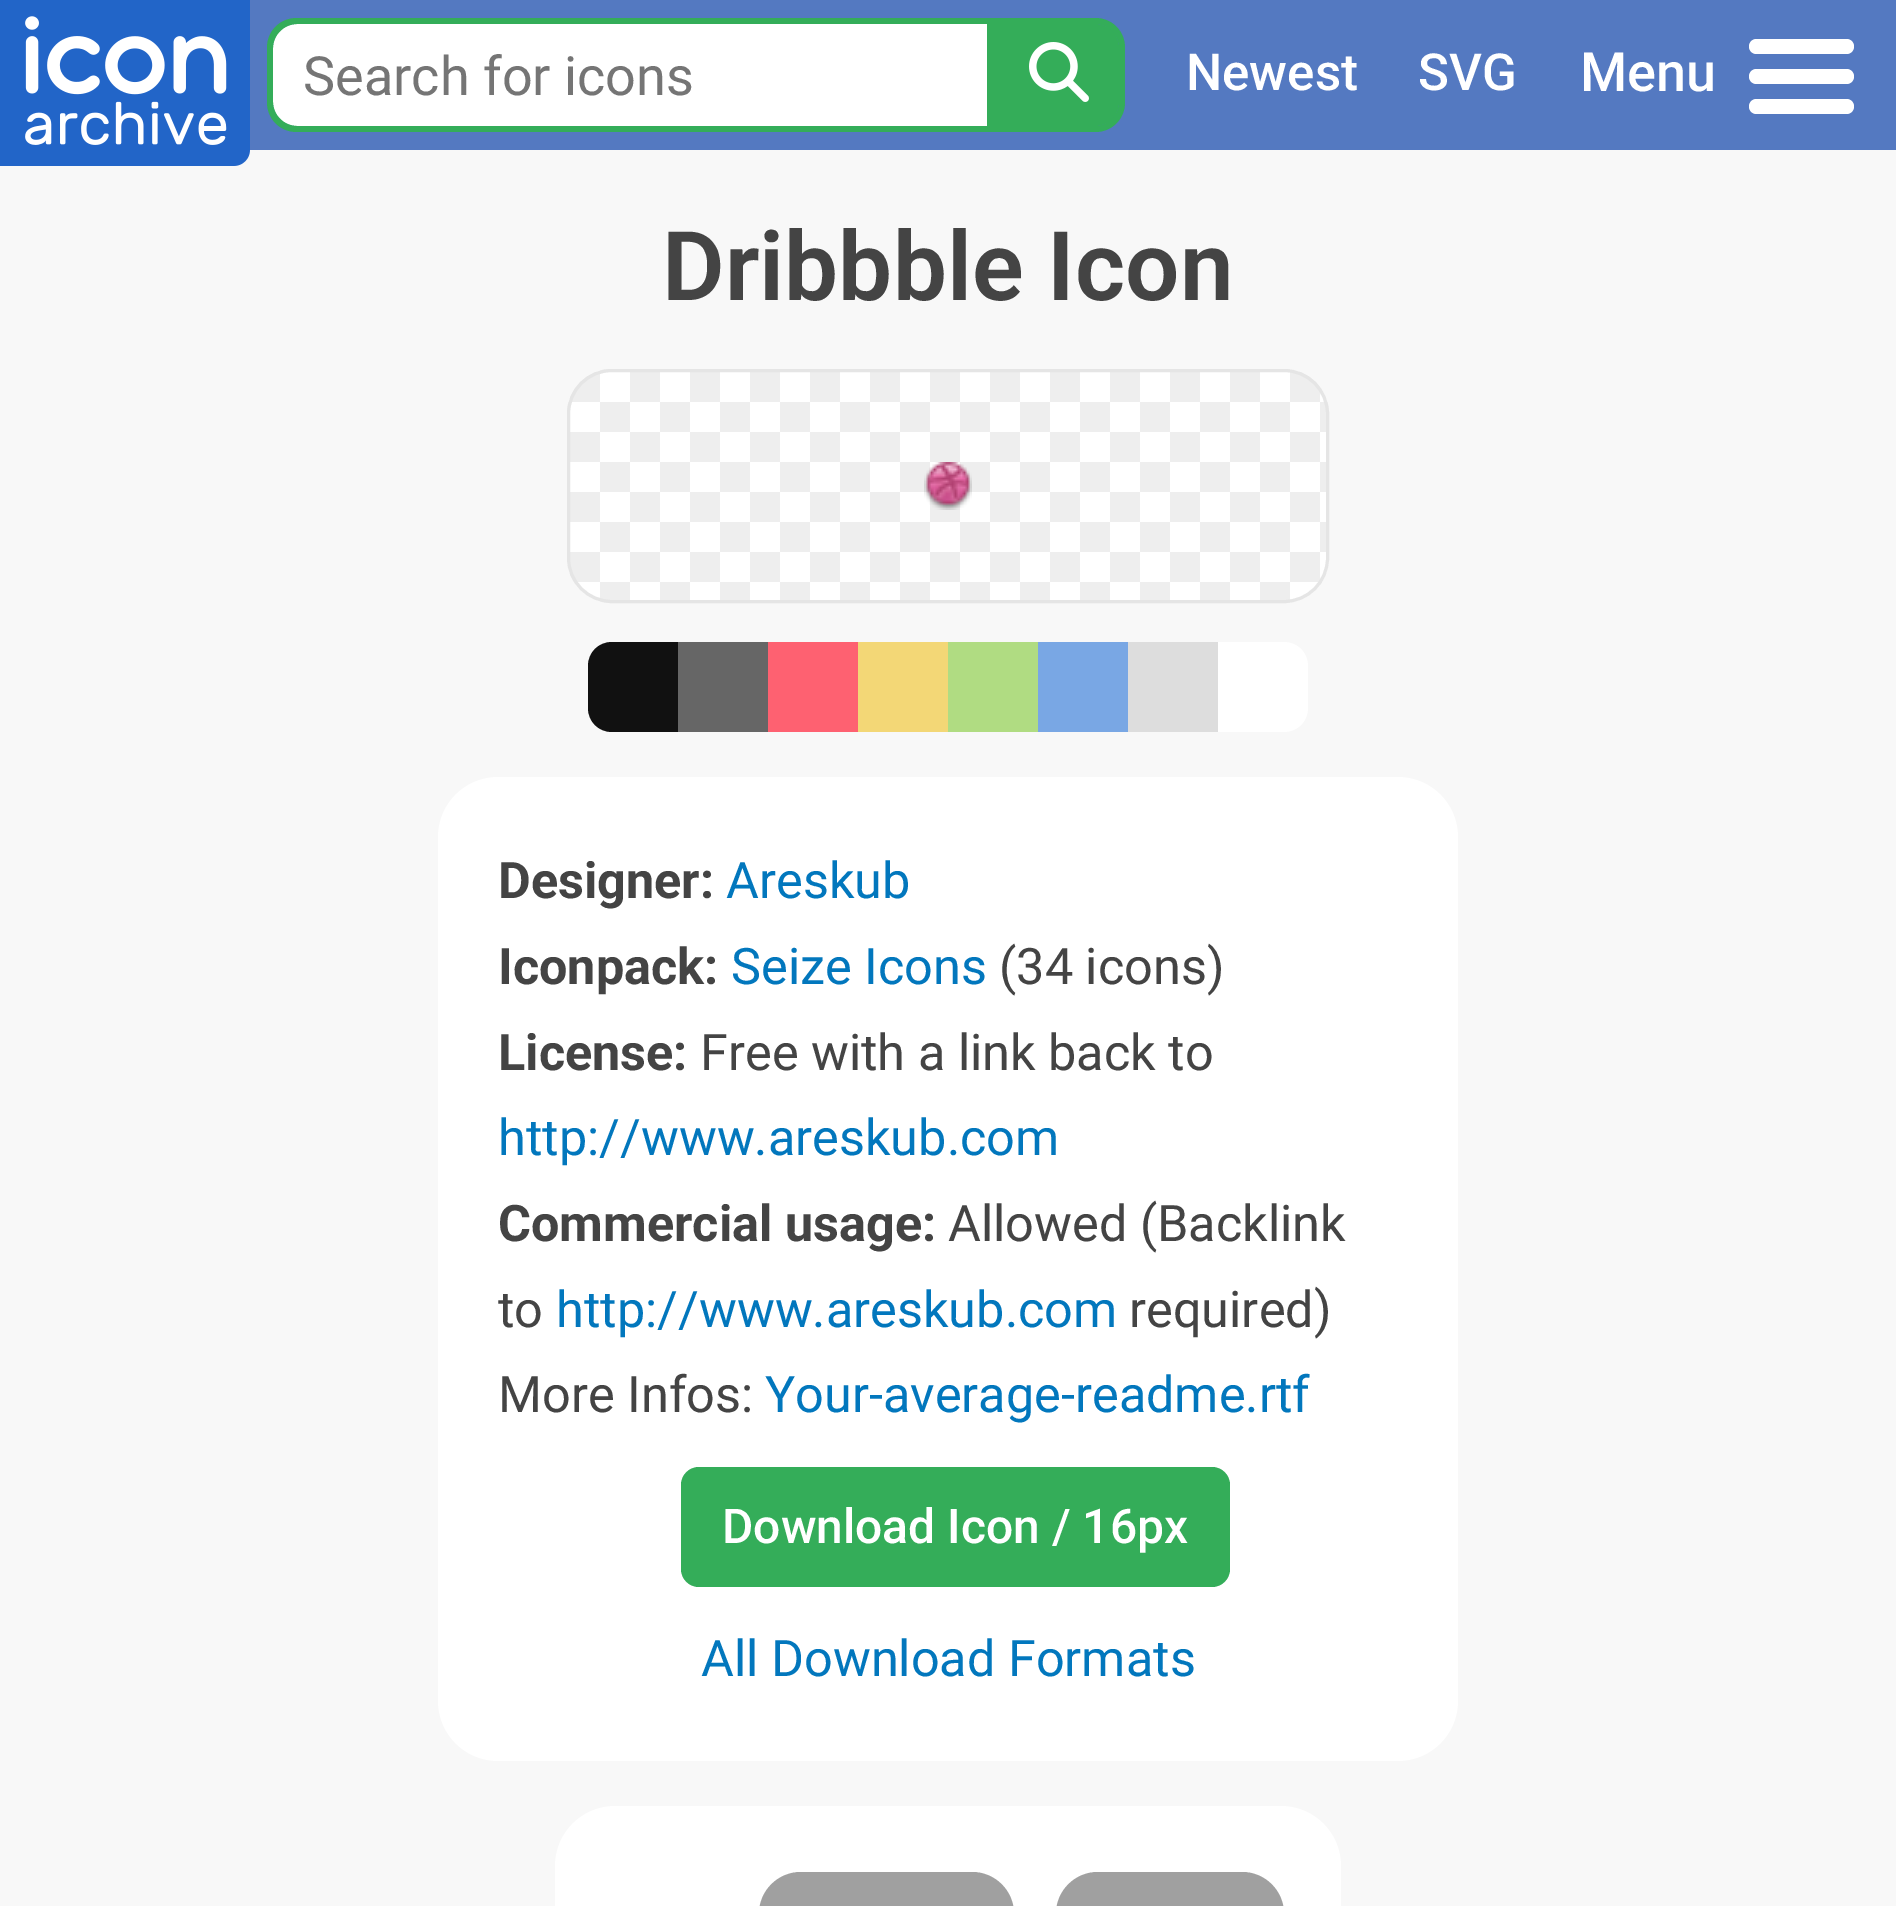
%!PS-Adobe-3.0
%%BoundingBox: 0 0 1896 1906
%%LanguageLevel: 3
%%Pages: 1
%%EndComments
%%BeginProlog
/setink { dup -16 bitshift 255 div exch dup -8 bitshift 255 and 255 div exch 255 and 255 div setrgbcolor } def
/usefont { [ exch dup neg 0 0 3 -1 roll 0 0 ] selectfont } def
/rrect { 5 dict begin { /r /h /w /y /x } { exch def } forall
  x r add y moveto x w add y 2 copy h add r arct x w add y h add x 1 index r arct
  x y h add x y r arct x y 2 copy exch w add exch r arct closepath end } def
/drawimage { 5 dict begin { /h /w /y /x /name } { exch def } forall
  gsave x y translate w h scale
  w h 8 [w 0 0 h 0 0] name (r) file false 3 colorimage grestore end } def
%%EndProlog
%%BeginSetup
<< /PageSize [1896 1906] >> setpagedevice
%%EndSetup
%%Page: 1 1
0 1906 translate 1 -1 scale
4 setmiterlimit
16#F8F8F8 setink
0 0 1896 1906 rectfill
16#5479C1 setink
250 0 1646 150 rectfill
(img1.raw) 0 0 250 166 drawimage
16#FFFFFF setink
297 24 moveto 987 24 lineto 987 126 lineto 297 126 lineto 283.5 126 273 115.5 273 102 curveto 273 48 lineto 273 34.5 283.5 24 297 24 curveto closepath fill
16#34AD59 setink
297 18 moveto 987 18 lineto 987 132 lineto 297 132 lineto 280 132 267 119 267 102 curveto 267 48 lineto 267 31 280 18 297 18 curveto closepath 297 24 moveto 987 24 lineto 987 126 lineto 297 126 lineto 284 126 273 115 273 102 curveto 273 48 lineto 273 35 284 24 297 24 curveto closepath eofill
/Roboto-Regular 54 usefont
16#757575 setink
303 95 moveto (Search for icons) show
16#34AD59 setink
987 24 moveto 1095 24 lineto 1108.5 24 1119 34.5 1119 48 curveto 1119 102 lineto 1119 115.5 1108.5 126 1095 126 curveto 987 126 lineto closepath fill
987 18 moveto 1095 18 lineto 1112 18 1125 31 1125 48 curveto 1125 102 lineto 1125 119 1112 132 1095 132 curveto 987 132 lineto closepath 987 24 moveto 1095 24 lineto 1108 24 1119 35 1119 48 curveto 1119 102 lineto 1119 115 1108 126 1095 126 curveto 987 126 lineto closepath eofill
(img2.raw) 1029 42 60 60 drawimage
/Roboto-Medium 51 usefont
16#FFFFFF setink
1186 90 moveto (Newest) show
1418 90 moveto (SVG) show
/Roboto-Medium 54 usefont
1580 91 moveto (Menu) show
1749 39 105 15 7.5 rrect fill
1749 69 105 15 7.5 rrect fill
1749 99 105 15 7.5 rrect fill
/Roboto-SemiBold 96.25 usefont
16#444444 setink
662 300 moveto (Dribbble Icon) show
(img3.raw) 567 369 762 234 drawimage
16#E5E5E5 setink
3 setlinewidth
568.5 370.5 759 231 43.5 rrect stroke
(img4.raw) 924 462 48 48 drawimage
16#111111 setink
612 642 moveto 678 642 lineto 678 732 lineto 612 732 lineto 598.5 732 588 721.5 588 708 curveto 588 666 lineto 588 652.5 598.5 642 612 642 curveto closepath fill
[
    [678 642 90 90 16#666666]
    [768 642 90 90 16#FE6171]
    [858 642 90 90 16#F3D776]
    [948 642 90 90 16#B0DC82]
    [1038 642 90 90 16#79A7E4]
    [1128 642 90 90 16#DDDDDD]
] { aload pop setink rectfill } forall
16#FFFFFF setink
1218 642 moveto 1284 642 lineto 1297.5 642 1308 652.5 1308 666 curveto 1308 708 lineto 1308 721.5 1297.5 732 1284 732 curveto 1218 732 lineto closepath fill
438 777 1020 984 60 rrect fill
/Roboto-Bold 50.4 usefont
16#444444 setink
498 898 moveto (Designer:) show
/Roboto-Regular 50.4 usefont
16#0277BD setink
726 898 moveto (Areskub) show
/Roboto-Bold 50.4 usefont
16#444444 setink
498 984 moveto (Iconpack:) show
/Roboto-Regular 50.4 usefont
16#0277BD setink
731 984 moveto (Seize Icons) show
16#444444 setink
999 984 moveto (\(34 icons\)) show
/Roboto-Bold 50.4 usefont
498 1070 moveto (License:) show
/Roboto-Regular 50.4 usefont
700 1070 moveto (Free with a link back to) show
16#0277BD setink
498 1155 moveto (http://www.areskub.com) show
/Roboto-Bold 50.4 usefont
16#444444 setink
498 1241 moveto (Commercial usage:) show
/Roboto-Regular 50.4 usefont
948 1241 moveto (Allowed \(Backlink) show
498 1327 moveto (to) show
16#0277BD setink
556 1327 moveto (http://www.areskub.com) show
16#444444 setink
1129 1327 moveto (required\)) show
498 1412 moveto (More Infos:) show
16#0277BD setink
765 1412 moveto (Your-average-readme.rtf) show
16#34AD59 setink
681 1467 549 120 18 rrect fill
/Roboto-Medium 48 usefont
16#FFFFFF setink
722 1543 moveto (Download Icon / 16px) show
/Roboto-Regular 50.4 usefont
16#0277BD setink
701 1676 moveto (All Download Formats) show
16#FFFFFF setink
555 1806 786 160 60 rrect fill
16#A0A0A0 setink
759 1872 255 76 42 rrect fill
1056 1872 228 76 42 rrect fill
showpage
%%EOF
